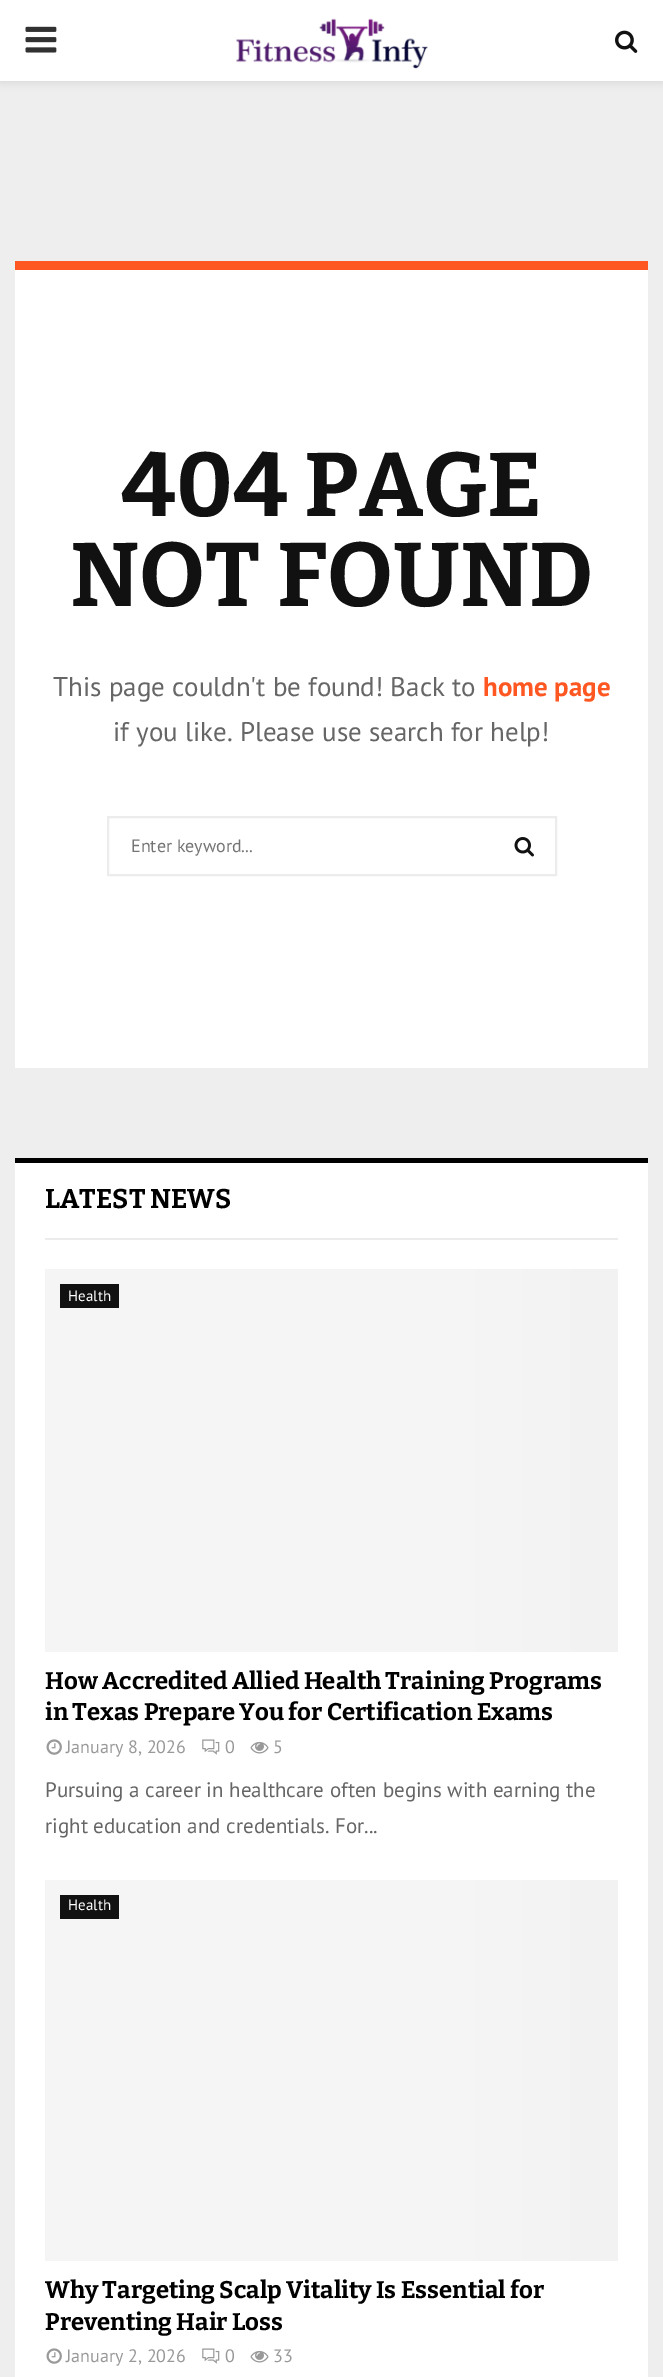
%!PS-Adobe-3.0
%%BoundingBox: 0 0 663 2377
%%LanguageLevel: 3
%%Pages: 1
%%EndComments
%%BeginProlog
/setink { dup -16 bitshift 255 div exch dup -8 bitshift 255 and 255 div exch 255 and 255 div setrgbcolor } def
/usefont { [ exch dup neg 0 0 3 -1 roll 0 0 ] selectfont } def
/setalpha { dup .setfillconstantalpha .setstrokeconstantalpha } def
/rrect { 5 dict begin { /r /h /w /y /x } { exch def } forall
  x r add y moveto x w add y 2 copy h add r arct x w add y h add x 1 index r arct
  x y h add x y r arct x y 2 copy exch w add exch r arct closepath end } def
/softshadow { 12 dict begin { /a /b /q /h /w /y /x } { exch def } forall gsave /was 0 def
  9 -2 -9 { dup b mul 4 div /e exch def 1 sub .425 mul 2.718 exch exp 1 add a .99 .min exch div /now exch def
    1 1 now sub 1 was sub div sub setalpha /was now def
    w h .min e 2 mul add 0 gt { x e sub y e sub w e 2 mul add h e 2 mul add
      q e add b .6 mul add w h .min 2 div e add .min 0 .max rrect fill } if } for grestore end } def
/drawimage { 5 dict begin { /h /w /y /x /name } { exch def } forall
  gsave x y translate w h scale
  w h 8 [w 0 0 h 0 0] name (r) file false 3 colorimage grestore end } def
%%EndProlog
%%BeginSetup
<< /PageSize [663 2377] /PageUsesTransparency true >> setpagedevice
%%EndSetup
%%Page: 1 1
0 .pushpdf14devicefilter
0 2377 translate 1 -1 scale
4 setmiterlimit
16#EEEEEE setink
0 0 663 2377 rectfill
16#BEBEBE setink
0 2 663 81 0 4 0.46 softshadow
16#FFFFFF setink
0 0 663 81 rectfill
(img1.raw) 25 26 32 27 drawimage
(img2.raw) 236 18 192 51 drawimage
(img3.raw) 615 30 23 23 drawimage
15 270 633 798 rectfill
16#FF5722 setink
15 261 633 9 rectfill
/Bitter-Bold 90 usefont
16#111111 setink
121 516 moveto (404 PAGE) show
70 606 moveto (NOT FOUND) show
/PTSans-Regular 27 usefont
16#666666 setink
53 696 moveto (This page couldn't be found! Back to) show
/PTSans-Bold 27 usefont
16#FF5722 setink
483 696 moveto (home page) show
/PTSans-Regular 27 usefont
16#666666 setink
113 741 moveto (if you like. Please use search for help!) show
16#ECECEC setink
2 setlinewidth
108 817 448 58 rectstroke
/PTSans-Regular 18 usefont
16#757575 setink
131 852 moveto (Enter keyword...) show
(img4.raw) 514 837 20 20 drawimage
[
    [15 1163 633 1214 16#FFFFFF]
    [45 1238 573 2 16#ECECEC]
    [15 1158 633 5 16#000000]
] { aload pop setink rectfill } forall
/Bitter-Bold 27 usefont
45 1208 moveto (LATEST NEWS) show
gsave 45 1269 moveto 618 1269 lineto 618 1652 lineto 45 1652 lineto closepath clip newpath
<< /ShadingType 2 /ColorSpace /DeviceRGB /Coords [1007 1460 -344 1460] /Extend [true true] /Function << /FunctionType 3 /Domain [0 1] /Functions [<< /FunctionType 2 /Domain [0 1] /C0 [0.961 0.961 0.961] /C1 [0.937 0.937 0.937] /N 1 >> << /FunctionType 2 /Domain [0 1] /C0 [0.937 0.937 0.937] /C1 [0.961 0.961 0.961] /N 1 >> << /FunctionType 2 /Domain [0 1] /C0 [0.961 0.961 0.961] /C1 [0.961 0.961 0.961] /N 1 >>] /Bounds [0.15 0.4] /Encode [0 1 0 1 0 1] >> >> shfill grestore
16#111111 setink
60 1284 59 24 rectfill
/PTSans-Regular 15 usefont
16#FFFFFF setink
68 1301 moveto (Health) show
/Bitter-Bold 24 usefont
16#000000 setink
45 1689 moveto (How Accredited Allied Health Training Programs) show
45 1720 moveto (in Texas Prepare You for Certification Exams) show
(img5.raw) 46 1739 16 16 drawimage
/PTSans-Regular 18 usefont
16#999999 setink
66 1753 moveto (January 8, 2026) show
(img6.raw) 202 1739 18 16 drawimage
225 1753 moveto (0) show
(img7.raw) 250 1741 19 13 drawimage
273 1753 moveto (5) show
/PTSans-Regular 21 usefont
16#666666 setink
45 1797 moveto (Pursuing a career in healthcare often begins with earning the) show
45 1833 moveto (right education and credentials. For...) show
gsave 45 1880 moveto 618 1880 lineto 618 2261 lineto 45 2261 lineto closepath clip newpath
<< /ShadingType 2 /ColorSpace /DeviceRGB /Coords [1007 2070 -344 2070] /Extend [true true] /Function << /FunctionType 3 /Domain [0 1] /Functions [<< /FunctionType 2 /Domain [0 1] /C0 [0.961 0.961 0.961] /C1 [0.937 0.937 0.937] /N 1 >> << /FunctionType 2 /Domain [0 1] /C0 [0.937 0.937 0.937] /C1 [0.961 0.961 0.961] /N 1 >> << /FunctionType 2 /Domain [0 1] /C0 [0.961 0.961 0.961] /C1 [0.961 0.961 0.961] /N 1 >>] /Bounds [0.15 0.4] /Encode [0 1 0 1 0 1] >> >> shfill grestore
16#111111 setink
60 1895 59 24 rectfill
/PTSans-Regular 15 usefont
16#FFFFFF setink
68 1910 moveto (Health) show
/Bitter-Bold 24 usefont
16#000000 setink
45 2298 moveto (Why Targeting Scalp Vitality Is Essential for) show
45 2330 moveto (Preventing Hair Loss) show
(img5.raw) 46 2348 16 16 drawimage
/PTSans-Regular 18 usefont
16#999999 setink
66 2362 moveto (January 2, 2026) show
(img6.raw) 202 2348 18 16 drawimage
225 2362 moveto (0) show
(img7.raw) 250 2350 19 13 drawimage
273 2362 moveto (33) show
.poppdf14devicefilter showpage
%%EOF
